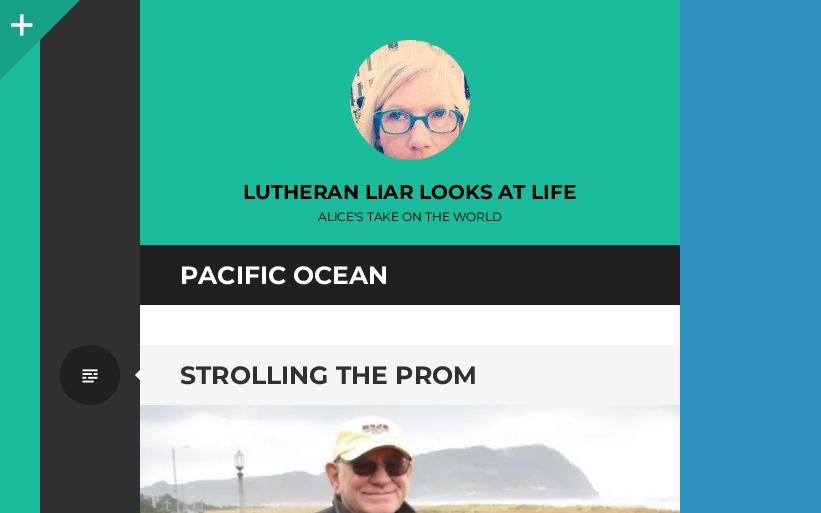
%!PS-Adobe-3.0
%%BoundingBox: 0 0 821 513
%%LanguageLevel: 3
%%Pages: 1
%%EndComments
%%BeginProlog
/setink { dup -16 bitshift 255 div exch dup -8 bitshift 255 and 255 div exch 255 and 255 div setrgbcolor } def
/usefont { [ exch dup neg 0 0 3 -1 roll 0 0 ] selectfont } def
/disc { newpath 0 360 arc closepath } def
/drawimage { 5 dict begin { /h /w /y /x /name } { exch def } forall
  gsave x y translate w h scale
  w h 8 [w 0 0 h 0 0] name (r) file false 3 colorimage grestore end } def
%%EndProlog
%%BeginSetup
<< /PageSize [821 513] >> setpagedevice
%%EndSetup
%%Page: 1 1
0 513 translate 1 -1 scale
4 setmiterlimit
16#2F8FBF setink
0 0 821 513 rectfill
[
    [0 40 40 473 16#1ABC9C]
    [40 0 100 513 16#303030]
    [0 0 40 40 16#16A085]
] { aload pop setink rectfill } forall
(img1.raw) 11 14 22 22 drawimage
40 0 moveto 80 0 lineto 40 40 lineto closepath fill
0 40 moveto 40 40 lineto 0 80 lineto closepath fill
16#1ABC9C setink
140 0 540 245 rectfill
(img2.raw) 350 40 120 120 drawimage
/Montserrat-Bold 20 usefont
16#000000 setink
243 199 moveto (LUTHERAN LIAR LOOKS AT LIFE) show
/Montserrat-Regular 12 usefont
318 221 moveto (ALICE'S TAKE ON THE WORLD) show
16#202020 setink
140 245 540 60 rectfill
/Montserrat-Bold 25 usefont
16#FFFFFF setink
180 284 moveto (PACIFIC OCEAN) show
16#202020 setink
90 375 30 disc fill
(img3.raw) 82 369 16 14 drawimage
16#F5F5F5 setink
140 345 540 60 rectfill
140 370 moveto 140 380 lineto 135 375 lineto closepath fill
16#303030 setink
180 384 moveto (STROLLING THE PROM) show
(img4.raw) 140 405 540 108 drawimage
16#FFFFFF setink
140 305 540 40 rectfill
showpage
%%EOF
